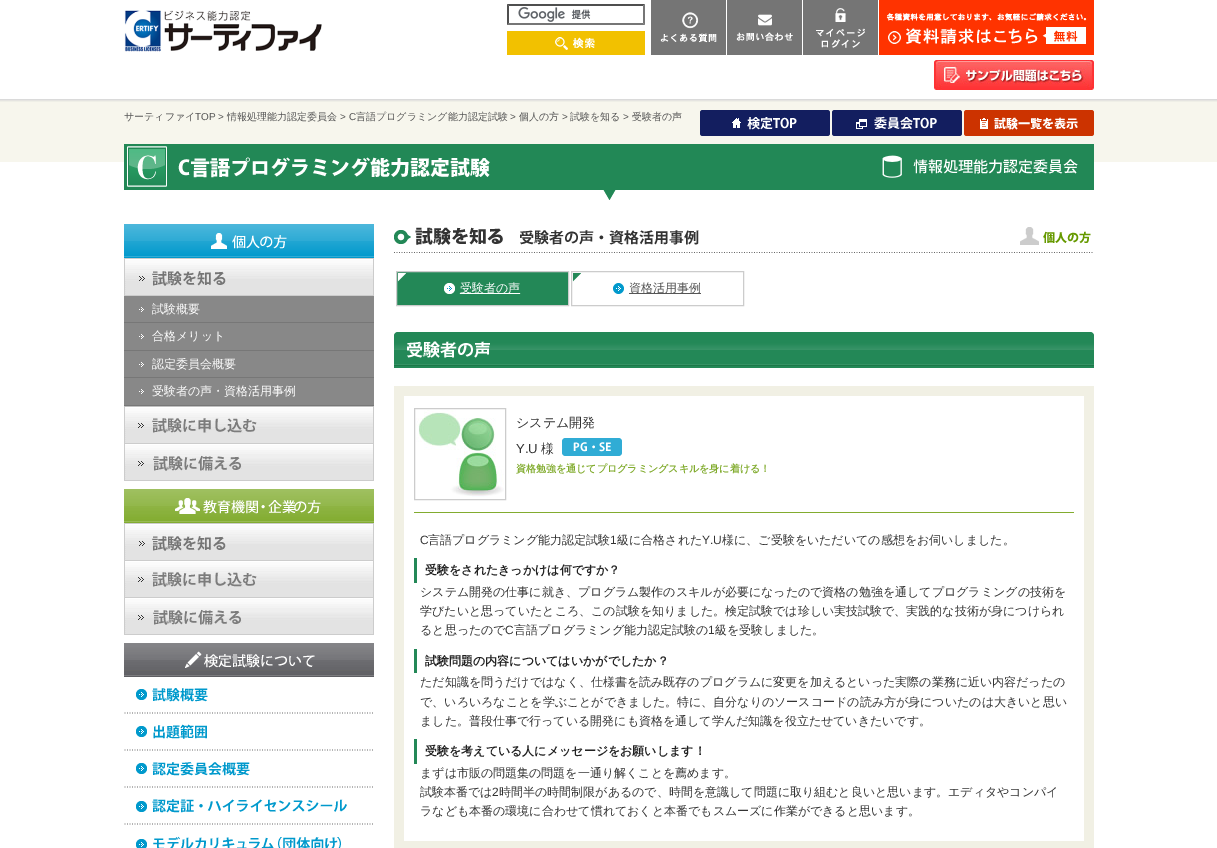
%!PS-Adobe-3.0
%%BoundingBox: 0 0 1217 848
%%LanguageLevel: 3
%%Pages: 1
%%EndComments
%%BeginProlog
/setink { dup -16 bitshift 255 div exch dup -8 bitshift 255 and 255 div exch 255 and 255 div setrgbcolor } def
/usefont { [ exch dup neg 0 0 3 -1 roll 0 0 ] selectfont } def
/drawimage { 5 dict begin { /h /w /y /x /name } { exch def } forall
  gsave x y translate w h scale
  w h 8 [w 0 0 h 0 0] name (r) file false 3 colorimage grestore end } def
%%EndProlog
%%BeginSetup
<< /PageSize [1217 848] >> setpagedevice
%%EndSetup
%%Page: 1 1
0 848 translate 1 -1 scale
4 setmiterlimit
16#FFFFFF setink
0 0 1217 848 rectfill
(img1.raw) 0 99 1217 7 drawimage
(img2.raw) 124 10 198 42 drawimage
(img3.raw) 518 7 73 15 drawimage
16#4F4F4F setink
507 4 moveto 645 4 lineto 643 6 lineto 509 6 lineto closepath fill
16#767676 setink
645 4 moveto 645 25 lineto 643 23 lineto 643 6 lineto closepath fill
645 25 moveto 507 25 lineto 509 23 lineto 643 23 lineto closepath fill
16#4F4F4F setink
507 25 moveto 507 4 lineto 509 6 lineto 509 23 lineto closepath fill
(img4.raw) 507 31 138 24 drawimage
16#757575 setink
651 0 75 55 rectfill
(img5.raw) 660 12 57 31 drawimage
727 0 75 55 rectfill
(img6.raw) 736 14 57 27 drawimage
803 0 75 55 rectfill
(img7.raw) 816 8 49 40 drawimage
(img8.raw) 879 0 215 55 drawimage
(img9.raw) 934 60 160 30 drawimage
16#F7F6ED setink
0 106 1217 56 rectfill
/WenQuanYiZenHei-Medium 10 usefont
16#555555 setink
124 120 moveto (サーティファイ) show
/LiberationSans-Regular 10 usefont
195 120 moveto (TOP >) show
/WenQuanYiZenHei-Medium 10 usefont
227 120 moveto (情報処理能力認定委員会) show
/LiberationSans-Regular 10 usefont
340 120 moveto (> C) show
/WenQuanYiZenHei-Medium 10 usefont
356 120 moveto (言語プログラミング能力認定試験) show
/LiberationSans-Regular 10 usefont
510 120 moveto (>) show
/WenQuanYiZenHei-Medium 10 usefont
519 120 moveto (個人の方) show
/LiberationSans-Regular 10 usefont
562 120 moveto (>) show
/WenQuanYiZenHei-Medium 10 usefont
570 120 moveto (試験を知る) show
/LiberationSans-Regular 10 usefont
623 120 moveto (>) show
/WenQuanYiZenHei-Medium 10 usefont
632 120 moveto (受験者の声) show
(img10.raw) 700 110 130 26 drawimage
(img11.raw) 832 110 130 26 drawimage
(img12.raw) 964 110 130 26 drawimage
(img13.raw) 124 144 970 56 drawimage
(img14.raw) 124 224 250 34 drawimage
(img15.raw) 124 258 250 38 drawimage
[
    [124 406 250 1 16#C0C0C0]
    [124 296 250 26 16#888888]
    [124 322 250 1 16#777777]
] { aload pop setink rectfill } forall
(img16.raw) 139 307 5 5 drawimage
/WenQuanYiZenHei-Medium 12 usefont
16#FEFEFE setink
152 313 moveto (試験概要) show
16#888888 setink
124 323 250 27 rectfill
16#777777 setink
124 350 250 1 rectfill
(img16.raw) 139 334 5 5 drawimage
16#FEFEFE setink
152 340 moveto (合格メリット) show
16#888888 setink
124 351 250 26 rectfill
16#777777 setink
124 377 250 1 rectfill
(img16.raw) 139 362 5 5 drawimage
16#FEFEFE setink
152 368 moveto (認定委員会概要) show
16#888888 setink
124 378 250 27 rectfill
16#777777 setink
124 405 250 1 rectfill
(img16.raw) 139 389 5 5 drawimage
16#FEFEFE setink
152 395 moveto (受験者の声・資格活用事例) show
(img17.raw) 124 407 250 37 drawimage
(img18.raw) 124 444 250 37 drawimage
(img19.raw) 124 489 250 34 drawimage
(img15.raw) 124 523 250 38 drawimage
(img17.raw) 124 561 250 37 drawimage
(img18.raw) 124 598 250 37 drawimage
(img20.raw) 124 643 250 34 drawimage
(img21.raw) 124 688 249 26 drawimage
(img22.raw) 124 724 249 27 drawimage
(img23.raw) 124 762 249 26 drawimage
(img24.raw) 124 799 249 26 drawimage
(img25.raw) 136 836 205 12 drawimage
(img26.raw) 394 252 699 1 drawimage
(img27.raw) 394 227 697 18 drawimage
(img28.raw) 397 272 171 33 drawimage
16#CCCCCC setink
396.5 271.5 172 34 rectstroke
(img29.raw) 444 283 77 11 drawimage
16#FEFEFE setink
460 292 moveto (受験者の声) show
(img30.raw) 572 273 171 32 drawimage
16#CCCCCC setink
571.5 271.5 172 34 rectstroke
(img31.raw) 613 283 88 11 drawimage
16#555555 setink
629 292 moveto (資格活用事例) show
(img32.raw) 394 332 700 36 drawimage
[
    [394 386 700 462 16#F1F0E4]
    [404 396 680 445 16#FFFFFF]
    [414 512 660 1 16#82AC2F]
] { aload pop setink rectfill } forall
16#CCCCCC setink
414.5 408.5 91 91 rectstroke
(img33.raw) 416 410 88 87 drawimage
/WenQuanYiZenHei-Medium 13 usefont
16#333333 setink
516 427 moveto (システム開発) show
/LiberationSans-Regular 13 usefont
516 453 moveto (Y.U) show
/WenQuanYiZenHei-Medium 13 usefont
541 453 moveto (様) show
(img34.raw) 562 438 60 18 drawimage
/WenQuanYiZenHei-Bold 10 usefont
16#82AC2F setink
516 472 moveto (資格勉強を通じてプログラミングスキルを身に着ける！) show
/LiberationSans-Regular 12 usefont
16#333333 setink
420 544 moveto (C) show
/WenQuanYiZenHei-Medium 12 usefont
428 544 moveto (言語プログラミング能力認定試験) show
/LiberationSans-Regular 12 usefont
610 544 moveto (1) show
/WenQuanYiZenHei-Medium 12 usefont
617 544 moveto (級に合格された) show
/LiberationSans-Regular 12 usefont
702 544 moveto (Y.U) show
/WenQuanYiZenHei-Medium 12 usefont
722 544 moveto (様に、ご受験をいただいての感想をお伺いしました。) show
16#238857 setink
414 558 3 25 rectfill
/WenQuanYiZenHei-Bold 12 usefont
16#222222 setink
425 574 moveto (受験をされたきっかけは何ですか？) show
/WenQuanYiZenHei-Medium 12 usefont
16#333333 setink
[
    [(システム開発の仕事に就き、プログラム製作のスキルが必要になったので資格の勉強を通してプログラミングの技術を) 420 596]
    [(学びたいと思っていたところ、この試験を知りました。検定試験では珍しい実技試験で、実践的な技術が身につけられ) 420 615]
    [(ると思ったので) 420 634]
] { aload pop moveto show } forall
/LiberationSans-Regular 12 usefont
505 634 moveto (C) show
/WenQuanYiZenHei-Medium 12 usefont
514 634 moveto (言語プログラミング能力認定試験の) show
/LiberationSans-Regular 12 usefont
708 634 moveto (1) show
/WenQuanYiZenHei-Medium 12 usefont
715 634 moveto (級を受験しました。) show
16#238857 setink
414 649 3 24 rectfill
/WenQuanYiZenHei-Bold 12 usefont
16#222222 setink
425 665 moveto (試験問題の内容についてはいかがでしたか？) show
/WenQuanYiZenHei-Medium 12 usefont
16#333333 setink
[
    [(ただ知識を問うだけではなく、仕様書を読み既存のプログラムに変更を加えるといった実際の業務に近い内容だったの) 420 686]
    [(で、いろいろなことを学ぶことができました。特に、自分なりのソースコードの読み方が身についたのは大きいと思い) 420 706]
    [(ました。普段仕事で行っている開発にも資格を通して学んだ知識を役立たせていきたいです。) 420 725]
] { aload pop moveto show } forall
16#238857 setink
414 739 3 25 rectfill
/WenQuanYiZenHei-Bold 12 usefont
16#222222 setink
425 755 moveto (受験を考えている人にメッセージをお願いします！) show
/WenQuanYiZenHei-Medium 12 usefont
16#333333 setink
420 777 moveto (まずは市販の問題集の問題を一通り解くことを薦めます。) show
420 796 moveto (試験本番では) show
/LiberationSans-Regular 12 usefont
492 796 moveto (2) show
/WenQuanYiZenHei-Medium 12 usefont
499 796 moveto (時間半の時間制限があるので、時間を意識して問題に取り組むと良いと思います。エディタやコンパイ) show
420 815 moveto (ラなども本番の環境に合わせて慣れておくと本番でもスムーズに作業ができると思います。) show
showpage
%%EOF
